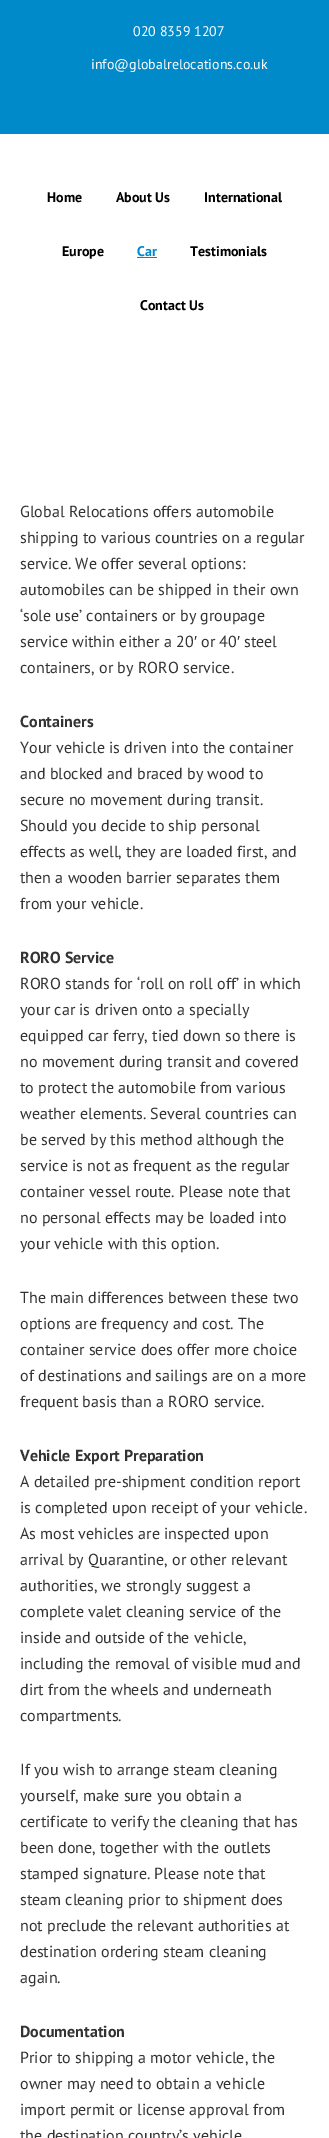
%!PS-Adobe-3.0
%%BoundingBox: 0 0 329 2138
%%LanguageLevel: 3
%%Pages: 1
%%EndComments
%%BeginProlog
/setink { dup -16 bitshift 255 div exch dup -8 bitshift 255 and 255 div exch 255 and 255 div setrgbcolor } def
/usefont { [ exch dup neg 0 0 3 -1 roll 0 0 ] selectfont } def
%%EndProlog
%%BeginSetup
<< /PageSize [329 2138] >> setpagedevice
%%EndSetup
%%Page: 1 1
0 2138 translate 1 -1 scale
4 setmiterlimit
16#FFFFFF setink
0 0 329 2138 rectfill
16#018ACA setink
0 0 329 134 rectfill
/PTSans-Regular 14 usefont
16#FFFFFF setink
133 36 moveto (020 8359 1207) show
91 69 moveto (info@globalrelocations.co.uk) show
/PTSans-Bold 14 usefont
16#000000 setink
[
    [(Home) 47 202]
    [(About Us) 116 202]
    [(International) 204 202]
    [(Europe) 62 256]
] { aload pop moveto show } forall
16#018ACA setink
137 256 moveto (Car) show
137 257 20 1 rectfill
16#000000 setink
190 256 moveto (Testimonials) show
140 310 moveto (Contact Us) show
/PTSans-Regular 16 usefont
16#333333 setink
[
    [(Global Relocations offers automobile) 20 517]
    [(shipping to various countries on a regular) 20 543]
    [(service. We offer several options:) 20 569]
    [(automobiles can be shipped in their own) 20 595]
    [(‘sole use’ containers or by groupage) 20 621]
    [(service within either a 20) 20 647]
] { aload pop moveto show } forall
/LiberationSans-Regular 16 usefont
194 647 moveto (′) show
/PTSans-Regular 16 usefont
201 647 moveto (or 40) show
/LiberationSans-Regular 16 usefont
237 647 moveto (′) show
/PTSans-Regular 16 usefont
244 647 moveto (steel) show
20 673 moveto (containers, or by RORO service.) show
/PTSans-Bold 16 usefont
20 727 moveto (Containers) show
/PTSans-Regular 16 usefont
[
    [(Your vehicle is driven into the container) 20 753]
    [(and blocked and braced by wood to) 20 779]
    [(secure no movement during transit.) 20 805]
    [(Should you decide to ship personal) 20 831]
    [(effects as well, they are loaded first, and) 20 857]
    [(then a wooden barrier separates them) 20 883]
    [(from your vehicle.) 20 909]
] { aload pop moveto show } forall
/PTSans-Bold 16 usefont
20 963 moveto (RORO Service) show
/PTSans-Regular 16 usefont
[
    [(RORO stands for ‘roll on roll off’ in which) 20 989]
    [(your car is driven onto a specially) 20 1015]
    [(equipped car ferry, tied down so there is) 20 1041]
    [(no movement during transit and covered) 20 1067]
    [(to protect the automobile from various) 20 1093]
    [(weather elements. Several countries can) 20 1119]
    [(be served by this method although the) 20 1145]
    [(service is not as frequent as the regular) 20 1171]
    [(container vessel route. Please note that) 20 1197]
    [(no personal effects may be loaded into) 20 1223]
    [(your vehicle with this option.) 20 1249]
    [(The main differences between these two) 20 1303]
    [(options are frequency and cost. The) 20 1329]
    [(container service does offer more choice) 20 1355]
    [(of destinations and sailings are on a more) 20 1381]
    [(frequent basis than a RORO service.) 20 1407]
] { aload pop moveto show } forall
/PTSans-Bold 16 usefont
20 1461 moveto (Vehicle Export Preparation) show
/PTSans-Regular 16 usefont
[
    [(A detailed pre-shipment condition report) 20 1487]
    [(is completed upon receipt of your vehicle.) 20 1513]
    [(As most vehicles are inspected upon) 20 1539]
    [(arrival by Quarantine, or other relevant) 20 1565]
    [(authorities, we strongly suggest a) 20 1591]
    [(complete valet cleaning service of the) 20 1617]
    [(inside and outside of the vehicle,) 20 1643]
    [(including the removal of visible mud and) 20 1669]
    [(dirt from the wheels and underneath) 20 1695]
    [(compartments.) 20 1721]
    [(If you wish to arrange steam cleaning) 20 1775]
    [(yourself, make sure you obtain a) 20 1801]
    [(certificate to verify the cleaning that has) 20 1827]
    [(been done, together with the outlets) 20 1853]
    [(stamped signature. Please note that) 20 1879]
    [(steam cleaning prior to shipment does) 20 1905]
    [(not preclude the relevant authorities at) 20 1931]
    [(destination ordering steam cleaning) 20 1957]
    [(again.) 20 1983]
] { aload pop moveto show } forall
/PTSans-Bold 16 usefont
20 2037 moveto (Documentation) show
/PTSans-Regular 16 usefont
[
    [(Prior to shipping a motor vehicle, the) 20 2063]
    [(owner may need to obtain a vehicle) 20 2089]
    [(import permit or license approval from) 20 2115]
    [(the destination country’s vehicle) 20 2141]
] { aload pop moveto show } forall
showpage
%%EOF
